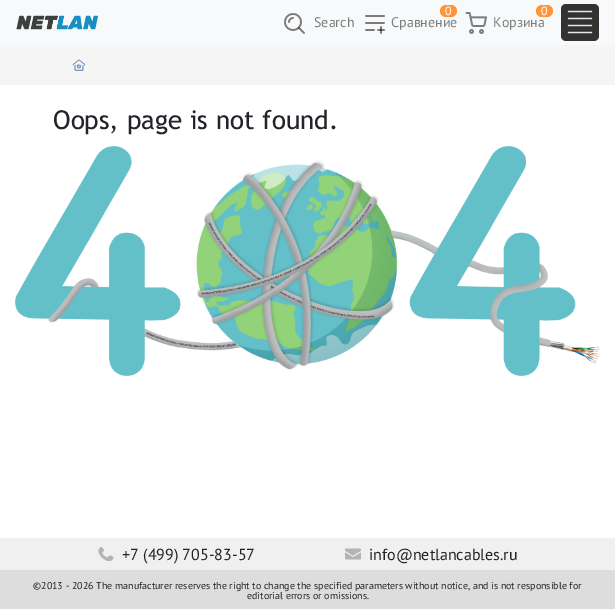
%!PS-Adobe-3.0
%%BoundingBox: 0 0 615 609
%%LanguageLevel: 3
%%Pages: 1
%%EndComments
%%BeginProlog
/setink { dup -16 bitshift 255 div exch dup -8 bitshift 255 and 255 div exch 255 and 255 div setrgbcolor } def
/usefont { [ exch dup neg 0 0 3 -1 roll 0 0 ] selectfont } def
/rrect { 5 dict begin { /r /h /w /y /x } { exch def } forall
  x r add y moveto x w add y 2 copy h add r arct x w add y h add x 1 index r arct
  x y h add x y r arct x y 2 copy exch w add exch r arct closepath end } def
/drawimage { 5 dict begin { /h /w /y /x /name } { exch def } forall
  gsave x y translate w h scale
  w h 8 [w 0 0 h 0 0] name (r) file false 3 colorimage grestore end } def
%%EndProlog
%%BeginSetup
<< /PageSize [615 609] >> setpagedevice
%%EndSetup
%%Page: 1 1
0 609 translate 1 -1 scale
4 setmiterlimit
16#FFFFFF setink
0 0 615 609 rectfill
16#F8F9FA setink
0 0 615 45 rectfill
(img1.raw) 16 15 82 15 drawimage
(img2.raw) 284 13 21 21 drawimage
/PTSans-Regular 14 usefont
16#7C7D7D setink
314 27 moveto (Search) show
16#FF953A setink
440 5 17 12 6 rrect fill
/PTSans-Regular 12 usefont
16#FFFFFF setink
445 15 moveto (0) show
(img3.raw) 365 15 20 19 drawimage
/PTSans-Regular 14 usefont
16#7C7D7D setink
391 27 moveto (Сравнение) show
16#FF953A setink
536 5 17 12 6 rrect fill
/PTSans-Regular 12 usefont
16#FFFFFF setink
541 15 moveto (0) show
(img4.raw) 465 12 22 22 drawimage
/PTSans-Regular 14 usefont
16#7C7D7D setink
493 27 moveto (Корзина) show
16#323231 setink
561 4 38 37 5 rrect fill
(img5.raw) 567 10 26 24 drawimage
16#F5F5F5 setink
0 45 615 40 rectfill
(img6.raw) 72 59 14 12 drawimage
/TrebuchetMS-Regular 26 usefont
16#212529 setink
53 129 moveto (Oops, page is not found.) show
(img7.raw) 15 146 585 230 drawimage
16#F0F0F0 setink
0 538 615 32 rectfill
(img8.raw) 98 547 16 14 drawimage
/PTSans-Regular 16 usefont
16#212529 setink
122 560 moveto (+7 \(499\) 705-83-57) show
(img9.raw) 345 548 16 12 drawimage
369 560 moveto (info@netlancables.ru) show
16#DCDDDC setink
0 570 615 39 rectfill
/PTSans-Regular 10 usefont
16#212529 setink
33 589 moveto (©2013 - 2026 The manufacturer reserves the right to change the specified parameters without notice, and is not responsible for) show
247 599 moveto (editorial errors or omissions.) show
showpage
%%EOF
